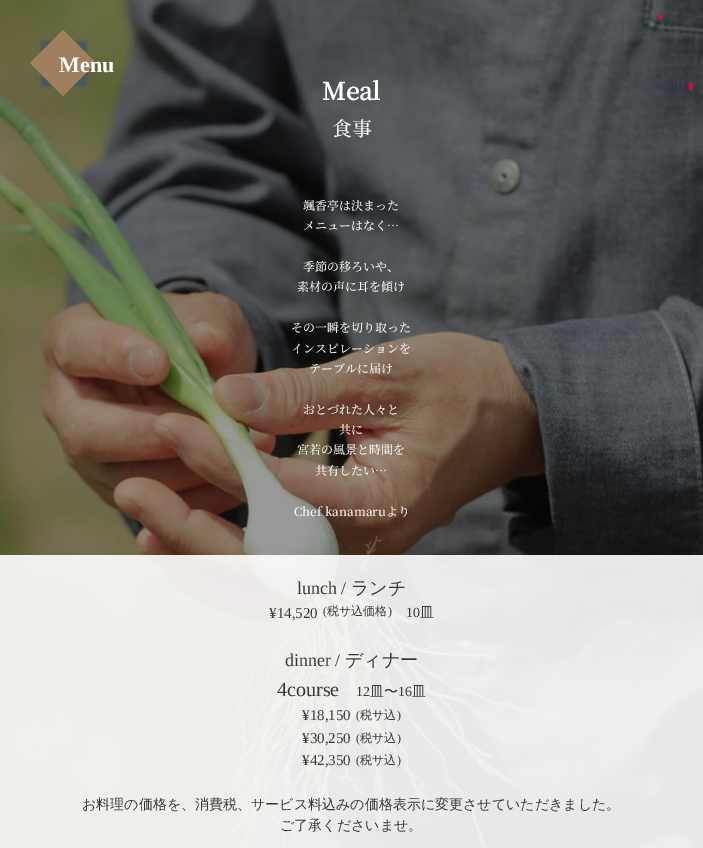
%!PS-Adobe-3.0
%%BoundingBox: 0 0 703 848
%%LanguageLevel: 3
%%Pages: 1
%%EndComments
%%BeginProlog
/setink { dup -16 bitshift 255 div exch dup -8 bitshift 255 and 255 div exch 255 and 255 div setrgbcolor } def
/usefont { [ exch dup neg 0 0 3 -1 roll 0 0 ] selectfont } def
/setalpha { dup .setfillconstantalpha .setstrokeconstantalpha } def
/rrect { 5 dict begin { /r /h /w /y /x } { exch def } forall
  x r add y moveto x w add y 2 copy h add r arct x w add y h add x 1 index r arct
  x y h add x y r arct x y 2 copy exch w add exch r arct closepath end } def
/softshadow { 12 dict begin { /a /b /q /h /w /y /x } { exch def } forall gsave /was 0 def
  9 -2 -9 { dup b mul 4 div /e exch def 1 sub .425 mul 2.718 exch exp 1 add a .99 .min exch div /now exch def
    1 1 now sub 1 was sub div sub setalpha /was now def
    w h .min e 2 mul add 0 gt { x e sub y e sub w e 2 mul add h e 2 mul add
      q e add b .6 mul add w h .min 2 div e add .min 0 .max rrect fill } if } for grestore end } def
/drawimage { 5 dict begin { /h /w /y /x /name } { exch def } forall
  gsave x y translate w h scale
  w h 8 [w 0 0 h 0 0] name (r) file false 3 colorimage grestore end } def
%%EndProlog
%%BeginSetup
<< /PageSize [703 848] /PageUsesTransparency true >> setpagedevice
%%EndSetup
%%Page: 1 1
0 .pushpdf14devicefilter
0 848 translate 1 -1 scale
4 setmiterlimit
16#FFFFFF setink
0 0 703 848 rectfill
(img1.raw) 0 0 703 848 drawimage
16#47595D setink
41 41 46 46 0 1 1 softshadow
16#9F7F5E setink
63 30 moveto 96 63 lineto 63 96 lineto 30 63 lineto closepath fill
3 setlinewidth
63 32.5 moveto 93.5 63 lineto 63 93.5 lineto 32.5 63 lineto closepath stroke
/LiberationSerif-Bold 22 usefont
16#FFFFFF setink
59 72 moveto (Menu) show
(img2.raw) 623 10 70 99 drawimage
/NotoSerifJP-Bold 24 usefont
322 100 moveto (Meal) show
/NotoSerifJP-ExtraLight 20 usefont
332 136 moveto (食事) show
/NotoSerifJP-ExtraLight 12 usefont
[
    [(颯香亭は決まった) 303 210]
    [(メニューはなく…) 303 230]
    [(季節の移ろいや、) 303 271]
    [(素材の声に耳を傾け) 297 291]
    [(その一瞬を切り取った) 291 332]
    [(インスピレーションを) 291 353]
    [(テーブルに届け) 309 373]
    [(おとづれた人々と) 303 414]
    [(共に) 339 434]
    [(宮若の風景と時間を) 297 454]
    [(共有したい…) 315 475]
    [(Chef kanamaruより) 294 516]
] { aload pop moveto show } forall
0.9 setalpha
0 555 703 293 rectfill
/LiberationSerif-Regular 18 usefont
1 setalpha
16#383838 setink
297 594 moveto (lunch /) show
/WenQuanYiZenHei-Medium 18 usefont
351 594 moveto (ランチ) show
/LiberationSerif-Regular 15 usefont
269 618 moveto (¥14,520) show
/LiberationSerif-Regular 12 usefont
323 615 moveto (\() show
/WenQuanYiZenHei-Medium 12 usefont
327 615 moveto (税サ込価格) show
/LiberationSerif-Regular 12 usefont
388 615 moveto (\)) show
/LiberationSerif-Regular 14 usefont
406 617 moveto (10) show
/WenQuanYiZenHei-Medium 14 usefont
420 617 moveto (皿) show
/LiberationSerif-Regular 18 usefont
285 666 moveto (dinner /) show
/WenQuanYiZenHei-Medium 18 usefont
345 666 moveto (ディナー) show
/LiberationSerif-Regular 20 usefont
277 696 moveto (4course) show
/LiberationSerif-Regular 14 usefont
356 696 moveto (12) show
/WenQuanYiZenHei-Medium 14 usefont
370 696 moveto (皿〜) show
/LiberationSerif-Regular 14 usefont
398 696 moveto (16) show
/WenQuanYiZenHei-Medium 14 usefont
412 696 moveto (皿) show
/LiberationSerif-Regular 15 usefont
302 720 moveto (¥18,150) show
/LiberationSerif-Regular 12 usefont
356 719 moveto (\() show
/WenQuanYiZenHei-Medium 12 usefont
360 719 moveto (税サ込) show
/LiberationSerif-Regular 12 usefont
397 719 moveto (\)) show
/LiberationSerif-Regular 15 usefont
302 743 moveto (¥30,250) show
/LiberationSerif-Regular 12 usefont
356 742 moveto (\() show
/WenQuanYiZenHei-Medium 12 usefont
360 742 moveto (税サ込) show
/LiberationSerif-Regular 12 usefont
397 742 moveto (\)) show
/LiberationSerif-Regular 15 usefont
302 765 moveto (¥42,350) show
/LiberationSerif-Regular 12 usefont
356 764 moveto (\() show
/WenQuanYiZenHei-Medium 12 usefont
360 764 moveto (税サ込) show
/LiberationSerif-Regular 12 usefont
397 764 moveto (\)) show
/WenQuanYiZenHei-Medium 14 usefont
82 809 moveto (お料理の価格を、消費税、サービス料込みの価格表示に変更させていただきました。) show
280 830 moveto (ご了承くださいませ。) show
.poppdf14devicefilter showpage
%%EOF
